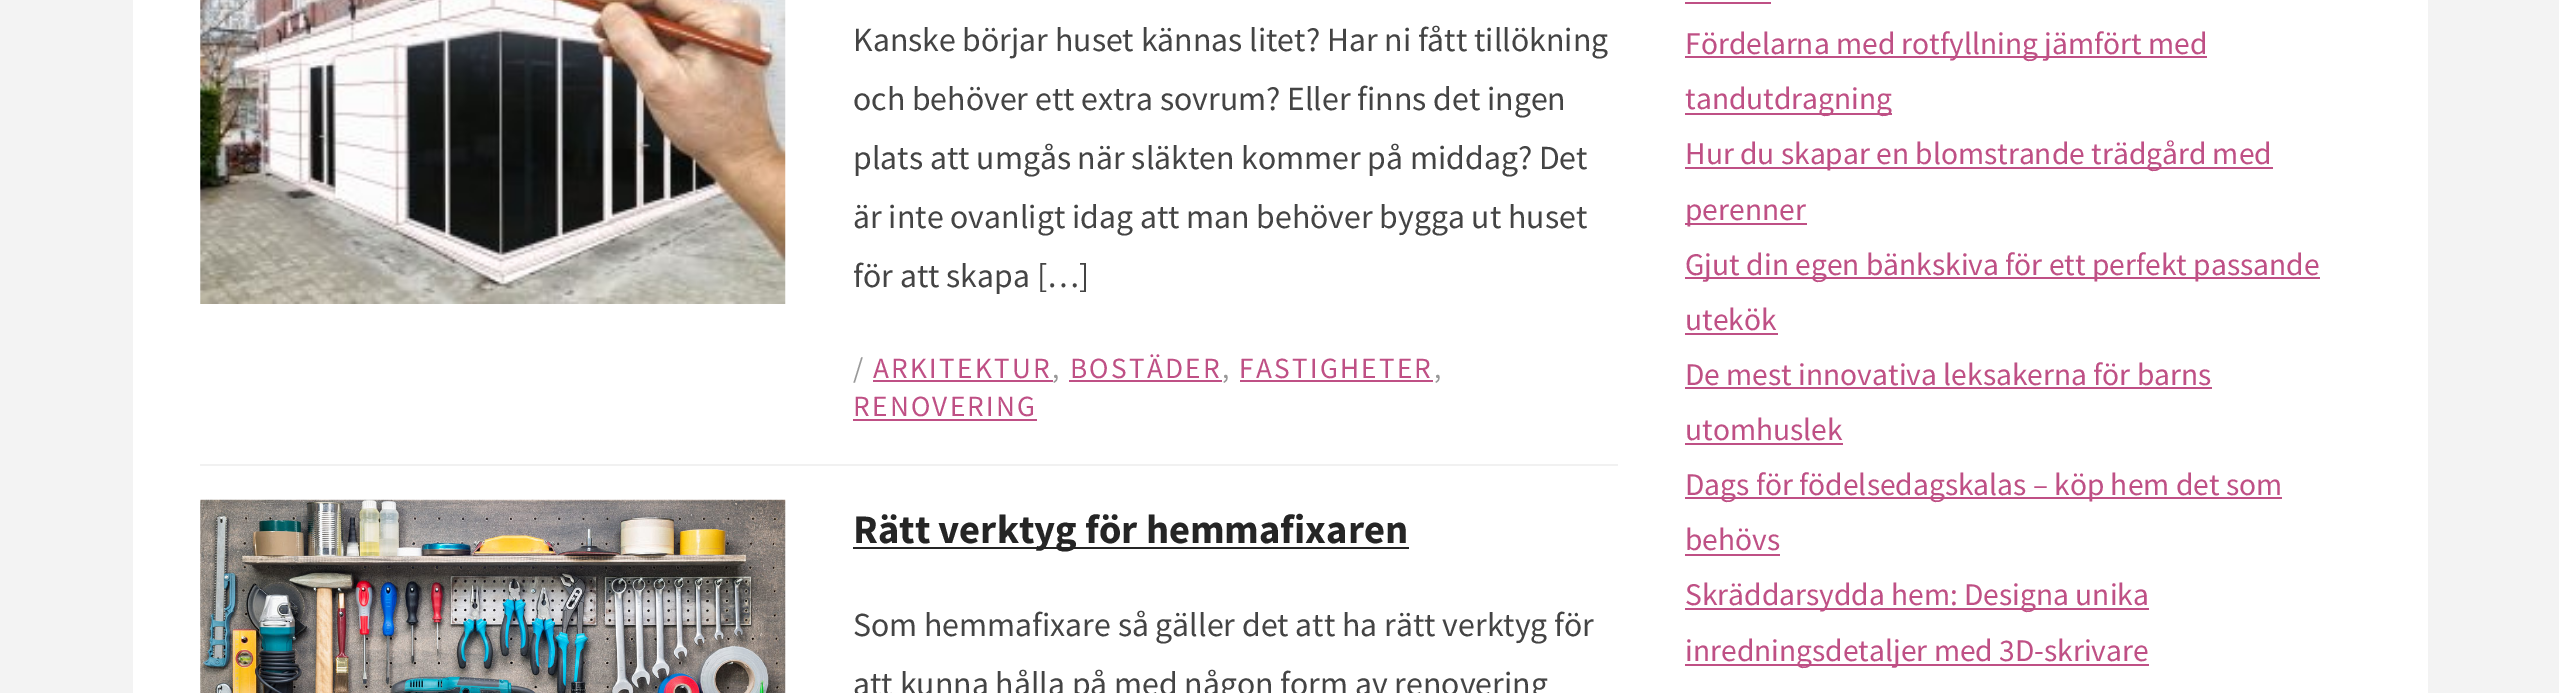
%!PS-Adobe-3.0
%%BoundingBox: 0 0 2559 693
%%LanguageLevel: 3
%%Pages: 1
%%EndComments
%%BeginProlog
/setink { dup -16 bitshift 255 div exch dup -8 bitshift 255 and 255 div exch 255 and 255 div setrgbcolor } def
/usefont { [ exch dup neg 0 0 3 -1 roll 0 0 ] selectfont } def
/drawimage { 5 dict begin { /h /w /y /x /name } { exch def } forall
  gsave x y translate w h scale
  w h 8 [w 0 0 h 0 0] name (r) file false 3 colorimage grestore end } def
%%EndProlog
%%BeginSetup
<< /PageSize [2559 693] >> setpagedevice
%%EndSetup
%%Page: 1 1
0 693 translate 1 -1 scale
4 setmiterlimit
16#F3F3F3 setink
0 0 2559 693 rectfill
16#FFFFFF setink
133 0 2295 693 rectfill
16#F1F1F1 setink
200 464 1418 2 rectfill
(img1.raw) 200 0 586 304 drawimage
/SourceSansPro-Regular 33.75 usefont
16#444444 setink
[
    [(Kanske börjar huset kännas litet? Har ni fått tillökning) 853 51]
    [(och behöver ett extra sovrum? Eller finns det ingen) 853 110]
    [(plats att umgås när släkten kommer på middag? Det) 853 169]
    [(är inte ovanligt idag att man behöver bygga ut huset) 853 228]
    [(för att skapa […]) 853 287]
] { aload pop moveto show } forall
/SourceSansPro-Regular 29.25 usefont
16#999999 setink
853 378 moveto 2.25 0 (/) ashow
16#BF5085 setink
873 378 moveto 2.25 0 (ARKITEKTUR) ashow
16#999999 setink
1052 378 moveto 2.25 0 (,) ashow
16#BF5085 setink
873 380 180 2 rectfill
1070 378 moveto 2.25 0 (BOSTÄDER) ashow
16#999999 setink
1222 378 moveto 2.25 0 (,) ashow
16#BF5085 setink
1069 380 153 2 rectfill
1239 378 moveto 2.25 0 (FASTIGHETER) ashow
16#999999 setink
1434 378 moveto 2.25 0 (,) ashow
16#BF5085 setink
1240 380 193 2 rectfill
853 416 moveto 2.25 0 (RENOVERING) ashow
853 419 184 2 rectfill
(img2.raw) 200 499 586 194 drawimage
16#252525 setink
853 547 556 2 rectfill
/SourceSansPro-Bold 40.5 usefont
853 543 moveto (Rätt verktyg för hemmafixaren) show
/SourceSansPro-Regular 33.75 usefont
16#444444 setink
853 636 moveto (Som hemmafixare så gäller det att ha rätt verktyg för) show
853 695 moveto (att kunna hålla på med någon form av renovering) show
16#BF5085 setink
1685 2 86 2 rectfill
1685 56 522 2 rectfill
/SourceSansPro-Regular 31.5 usefont
1685 54 moveto (Fördelarna med rotfyllning jämfört med) show
1685 113 207 2 rectfill
1685 109 moveto (tandutdragning) show
1685 167 588 2 rectfill
1685 164 moveto (Hur du skapar en blomstrande trädgård med) show
1685 223 122 2 rectfill
1685 220 moveto (perenner) show
1685 277 635 2 rectfill
1685 275 moveto (Gjut din egen bänkskiva för ett perfekt passande) show
1685 330 moveto (utekök) show
1685 333 93 2 rectfill
1685 385 moveto (De mest innovativa leksakerna för barns) show
1685 387 527 2 rectfill
1685 440 moveto (utomhuslek) show
1685 443 158 2 rectfill
1685 497 597 2 rectfill
1685 495 moveto (Dags för födelsedagskalas – köp hem det som) show
1685 550 moveto (behövs) show
1685 554 95 2 rectfill
1685 608 464 2 rectfill
1685 605 moveto (Skräddarsydda hem: Designa unika) show
1685 664 464 2 rectfill
1685 661 moveto (inredningsdetaljer med 3D-skrivare) show
showpage
%%EOF
